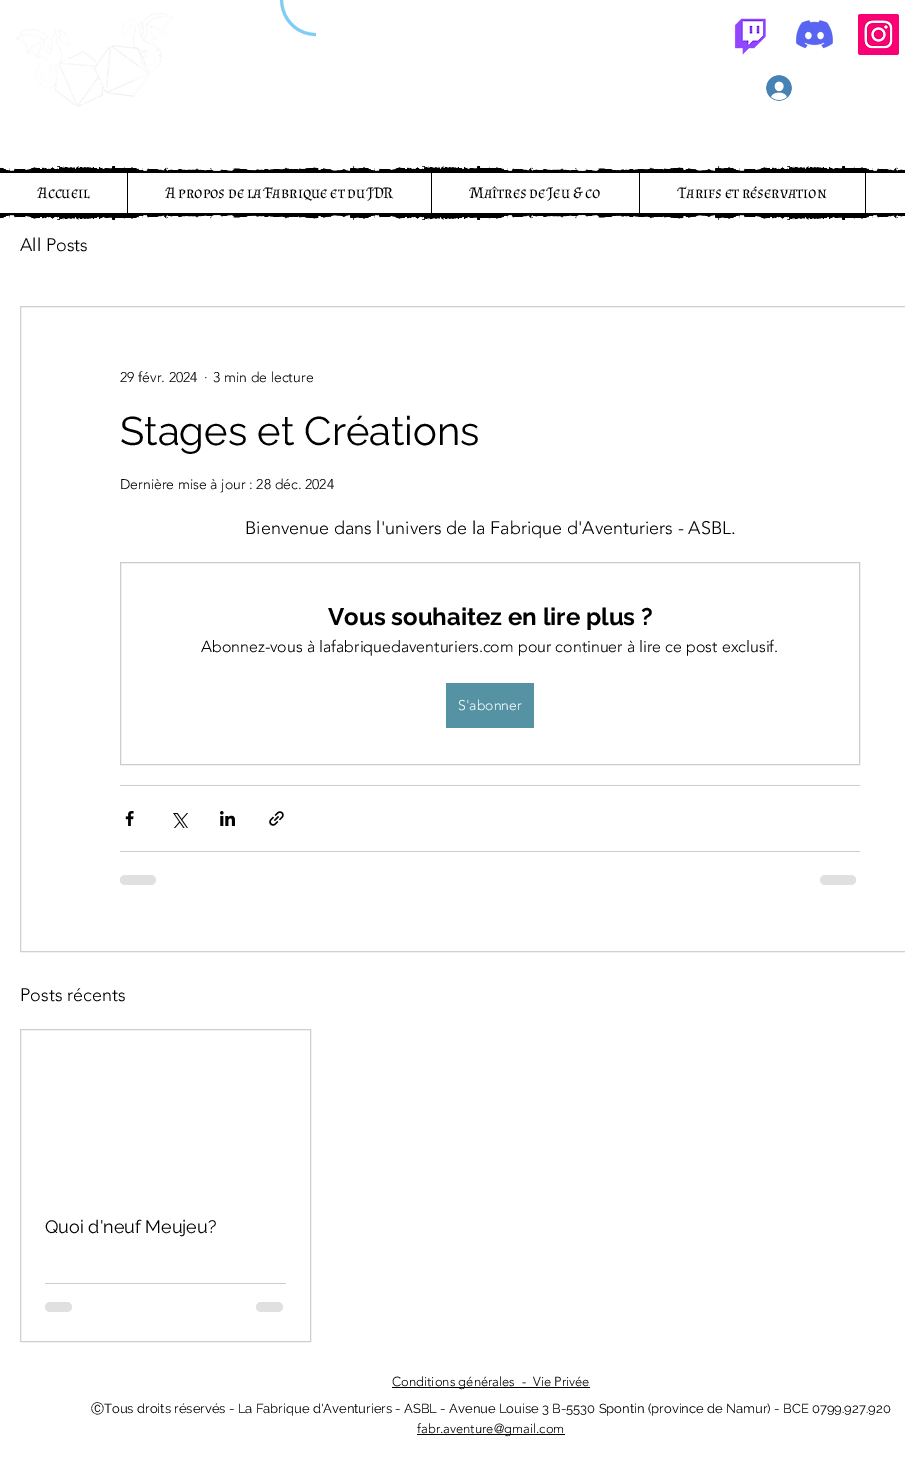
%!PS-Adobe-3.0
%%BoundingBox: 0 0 905 1470
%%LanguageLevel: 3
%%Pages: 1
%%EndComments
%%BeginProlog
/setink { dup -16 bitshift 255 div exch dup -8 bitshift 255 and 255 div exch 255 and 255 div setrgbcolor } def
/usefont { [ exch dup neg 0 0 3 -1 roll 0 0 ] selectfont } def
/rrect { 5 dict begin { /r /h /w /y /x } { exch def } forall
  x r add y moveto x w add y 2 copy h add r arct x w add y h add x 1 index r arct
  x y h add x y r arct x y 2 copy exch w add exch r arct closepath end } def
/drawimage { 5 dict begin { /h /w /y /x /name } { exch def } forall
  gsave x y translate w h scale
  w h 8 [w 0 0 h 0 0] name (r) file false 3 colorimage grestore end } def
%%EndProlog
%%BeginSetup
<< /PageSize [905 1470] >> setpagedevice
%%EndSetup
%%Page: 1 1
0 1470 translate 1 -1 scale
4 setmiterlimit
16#FFFFFF setink
0 0 905 1470 rectfill
16#7FCCF7 setink
3 setlinewidth
316 34.5 moveto 282 34.5 268.5 -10 297 -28.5 curveto 302.5 -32.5 309 -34.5 316 -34.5 curveto stroke
(img1.raw) 16 13 158 95 drawimage
(img2.raw) 734 18 32 37 drawimage
(img3.raw) 796 20 37 29 drawimage
(img4.raw) 858 14 41 41 drawimage
(img5.raw) 766 75 26 26 drawimage
(img6.raw) 0 166 905 7 drawimage
/AlmendraSC-Regular 16 usefont
16#000000 setink
38 198 moveto (Accueil) show
127 173 1 40 rectfill
166 198 moveto (A propos de la Fabrique et du JDR) show
431 173 1 40 rectfill
470 198 moveto (Maîtres de Jeu & co) show
639 173 1 40 rectfill
678 198 moveto (Tarifs et réservation) show
865 173 1 40 rectfill
(img7.raw) 0 213 905 7 drawimage
/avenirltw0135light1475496-Light 18 usefont
20 251 moveto (All Posts) show
16#CFCFCF setink
1 setlinewidth
20.5 306.5 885 645 rectstroke
/avenirltw0135light1475496-Light 14 usefont
16#000000 setink
[
    [(29 févr. 2024) 120 382]
    [(·) 204 382]
    [(3 min de lecture) 213 382]
] { aload pop moveto show } forall
/Raleway-Regular 40 usefont
120 445 moveto (Stages et Créations) show
/avenirltw0135light1475496-Light 14 usefont
120 489 moveto (Dernière mise à jour : 28 déc. 2024) show
/avenirltw0135light1475496-Light 18 usefont
245 534 moveto (Bienvenue dans l'univers de la Fabrique d'Aventuriers - ASBL.) show
16#CCCCCC setink
120.5 562.5 739 202 rectstroke
/Raleway-Bold 24 usefont
16#000000 setink
328 625 moveto (Vous souhaitez en lire plus ?) show
/avenirltw0135light1475496-Light 16 usefont
201 652 moveto (Abonnez-vous à lafabriquedaventuriers.com pour continuer à lire ce post exclusif.) show
16#5593A4 setink
446 683 88 45 rectfill
/avenirltw0135light1475496-Light 14 usefont
16#FFFFFF setink
458 710 moveto (S'abonner) show
16#CCCCCC setink
120 785 740 1 rectfill
(img8.raw) 125 811 9 15 drawimage
(img9.raw) 173 813 15 15 drawimage
(img10.raw) 220 811 15 15 drawimage
(img11.raw) 269 811 15 15 drawimage
120 851 740 1 rectfill
16#E0E0E0 setink
120 875 36 10 5 rrect fill
820 875 36 10 5 rrect fill
/avenirltw0135light1475496-Light 18 usefont
16#000000 setink
20 1001 moveto (Posts récents) show
16#CFCFCF setink
20.5 1029.5 290 312 rectstroke
/Raleway-Regular 18 usefont
16#000000 setink
45 1233 moveto (Quoi d'neuf Meujeu?) show
16#CCCCCC setink
45 1283 241 1 rectfill
16#E0E0E0 setink
45 1302 27 10 5 rrect fill
256 1302 27 10 5 rrect fill
16#000000 setink
392 1387 198 1 rectfill
/avenirltw0135light1475496-Light 13 usefont
392 1386 moveto (Conditions générales  -  Vie Privée) show
/WenQuanYiZenHei-Medium 13 usefont
91 1413 moveto (Ⓒ) show
/Raleway-Regular 13 usefont
104 1413 moveto (Tous droits réservés - La Fabrique d'Aventuriers - ASBL - Avenue Louise 3 B-5530 Spontin \(province de Namur\) - BCE 0799.927.920) show
417 1434 148 1 rectfill
/avenirltw0135light1475496-Light 13 usefont
417 1433 moveto (fabr.aventure@gmail.com) show
showpage
%%EOF
